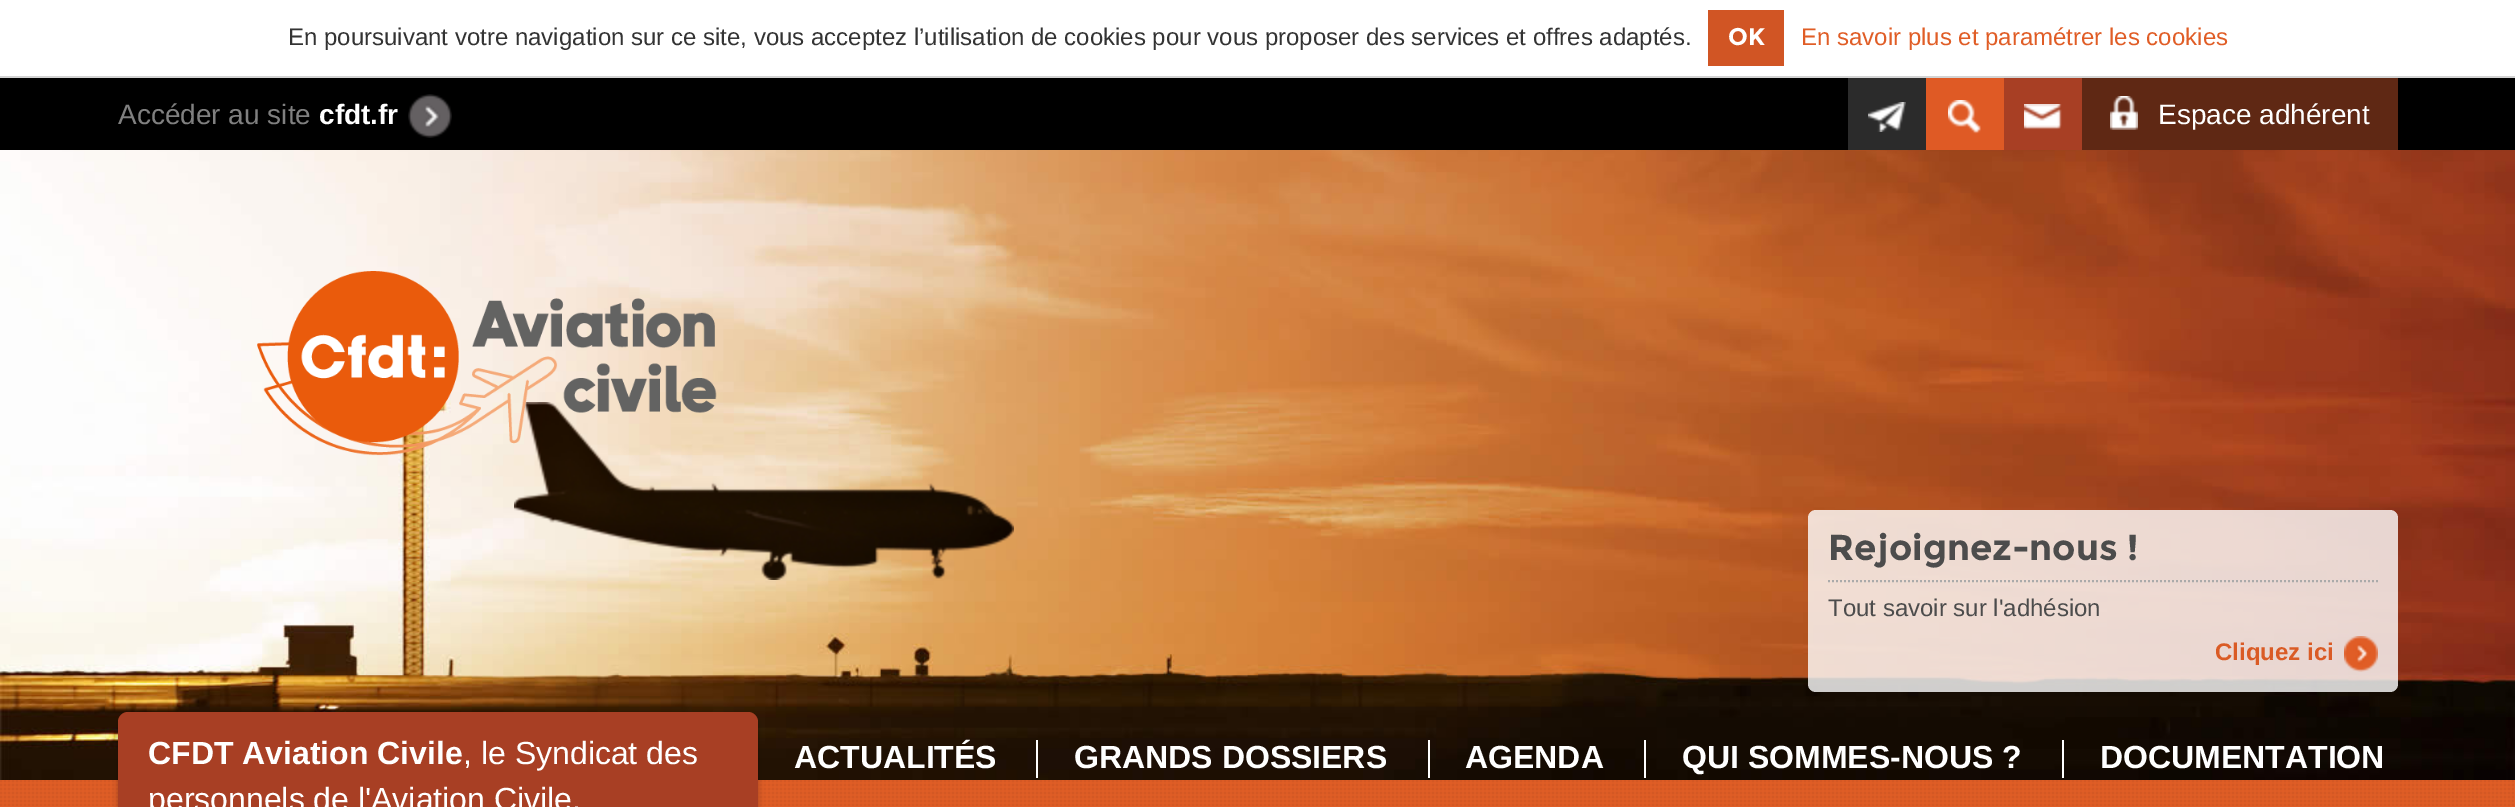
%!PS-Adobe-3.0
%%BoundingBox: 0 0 2515 807
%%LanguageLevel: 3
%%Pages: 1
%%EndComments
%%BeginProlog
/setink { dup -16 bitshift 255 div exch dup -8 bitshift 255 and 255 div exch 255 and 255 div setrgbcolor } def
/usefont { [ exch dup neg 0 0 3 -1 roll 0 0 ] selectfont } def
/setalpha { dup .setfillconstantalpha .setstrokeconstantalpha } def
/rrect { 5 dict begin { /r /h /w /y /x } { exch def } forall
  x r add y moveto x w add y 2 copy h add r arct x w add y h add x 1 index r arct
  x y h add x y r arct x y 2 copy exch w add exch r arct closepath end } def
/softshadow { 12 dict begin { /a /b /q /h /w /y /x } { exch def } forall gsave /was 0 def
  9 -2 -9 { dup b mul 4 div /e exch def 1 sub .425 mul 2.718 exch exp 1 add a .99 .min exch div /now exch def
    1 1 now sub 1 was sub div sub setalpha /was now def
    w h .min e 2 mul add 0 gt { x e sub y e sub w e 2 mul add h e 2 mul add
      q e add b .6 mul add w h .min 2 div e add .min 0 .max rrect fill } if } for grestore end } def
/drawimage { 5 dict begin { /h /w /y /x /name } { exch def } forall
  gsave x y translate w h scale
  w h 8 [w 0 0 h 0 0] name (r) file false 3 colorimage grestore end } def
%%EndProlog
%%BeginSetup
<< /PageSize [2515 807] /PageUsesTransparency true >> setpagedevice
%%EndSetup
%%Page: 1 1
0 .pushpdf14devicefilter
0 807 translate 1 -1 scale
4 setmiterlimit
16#FFFFFF setink
0 0 2515 807 rectfill
16#D3D3D3 setink
0 76 2515 2 rectfill
/LiberationSans-Regular 24 usefont
16#333333 setink
288 45 moveto (En poursuivant votre navigation sur ce site, vous acceptez l’utilisation de cookies pour vous proposer des services et offres adaptés.) show
16#D15524 setink
1708 10 76 56 rectfill
/Montserrat-Bold 24 usefont
16#FFFFFF setink
1728 45 moveto (OK) show
/LiberationSans-Regular 24 usefont
16#E05D26 setink
1801 45 moveto (En savoir plus et paramétrer les cookies) show
16#000000 setink
0 78 2515 72 rectfill
/LiberationSans-Regular 28 usefont
16#808080 setink
118 124 moveto (Accéder au site) show
/LiberationSans-Bold 28 usefont
16#FFFFFF setink
319 124 moveto (cfdt.fr) show
(img1.raw) 408 94 44 44 drawimage
16#2B2B2B setink
1848 78 78 72 rectfill
(img2.raw) 1868 102 38 30 drawimage
16#DF5A25 setink
1926 78 78 72 rectfill
(img3.raw) 1948 100 33 34 drawimage
16#A83F24 setink
2004 78 78 72 rectfill
(img4.raw) 2024 104 38 26 drawimage
16#5F2814 setink
2082 78 316 72 rectfill
(img5.raw) 2110 96 28 34 drawimage
/LiberationSans-Regular 28 usefont
16#FFFFFF setink
2158 124 moveto (Espace adhérent) show
16#E05D26 setink
0 780 2515 27 rectfill
(img6.raw) 0 780 2514 26 drawimage
(img7.raw) 0 150 2515 630 drawimage
16#000000 setink
118 716 640 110 10 3 0.25 softshadow
16#A83F24 setink
118 712 640 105 10 rrect fill
/LiberationSans-Bold 32 usefont
16#FFFFFF setink
148 764 moveto (CFDT Aviation Civile) show
/LiberationSans-Regular 32 usefont
463 764 moveto (, le Syndicat des) show
148 810 moveto (personnels de l'Aviation Civile.) show
(img8.raw) 514 402 500 178 drawimage
(img9.raw) 257 271 460 185 drawimage
0.8 setalpha
1808 510 590 182 8 rrect fill
1 setalpha
16#AAAAAA setink
2 setlinewidth
[2 2] 0 setdash
1828 581 moveto 2378 581 lineto stroke
/Montserrat-Bold 36 usefont
16#4C4C4C setink
1828 560 moveto (Rejoignez-nous !) show
/LiberationSans-Regular 24 usefont
1828 616 moveto (Tout savoir sur l'adhésion) show
/LiberationSans-Bold 24 usefont
16#DA5B25 setink
2215 660 moveto (Cliquez ici) show
(img10.raw) 2344 636 34 36 drawimage
/LiberationSans-Bold 32 usefont
16#FFFFFF setink
794 768 moveto (ACTUALITÉS) show
1036 740 2 38 rectfill
1074 768 moveto (GRANDS DOSSIERS) show
1428 740 2 38 rectfill
1465 768 moveto (AGENDA) show
1644 740 2 38 rectfill
1682 768 moveto (QUI SOMMES-NOUS ?) show
2062 740 2 38 rectfill
2100 768 moveto (DOCUMENTATION) show
.poppdf14devicefilter showpage
%%EOF
